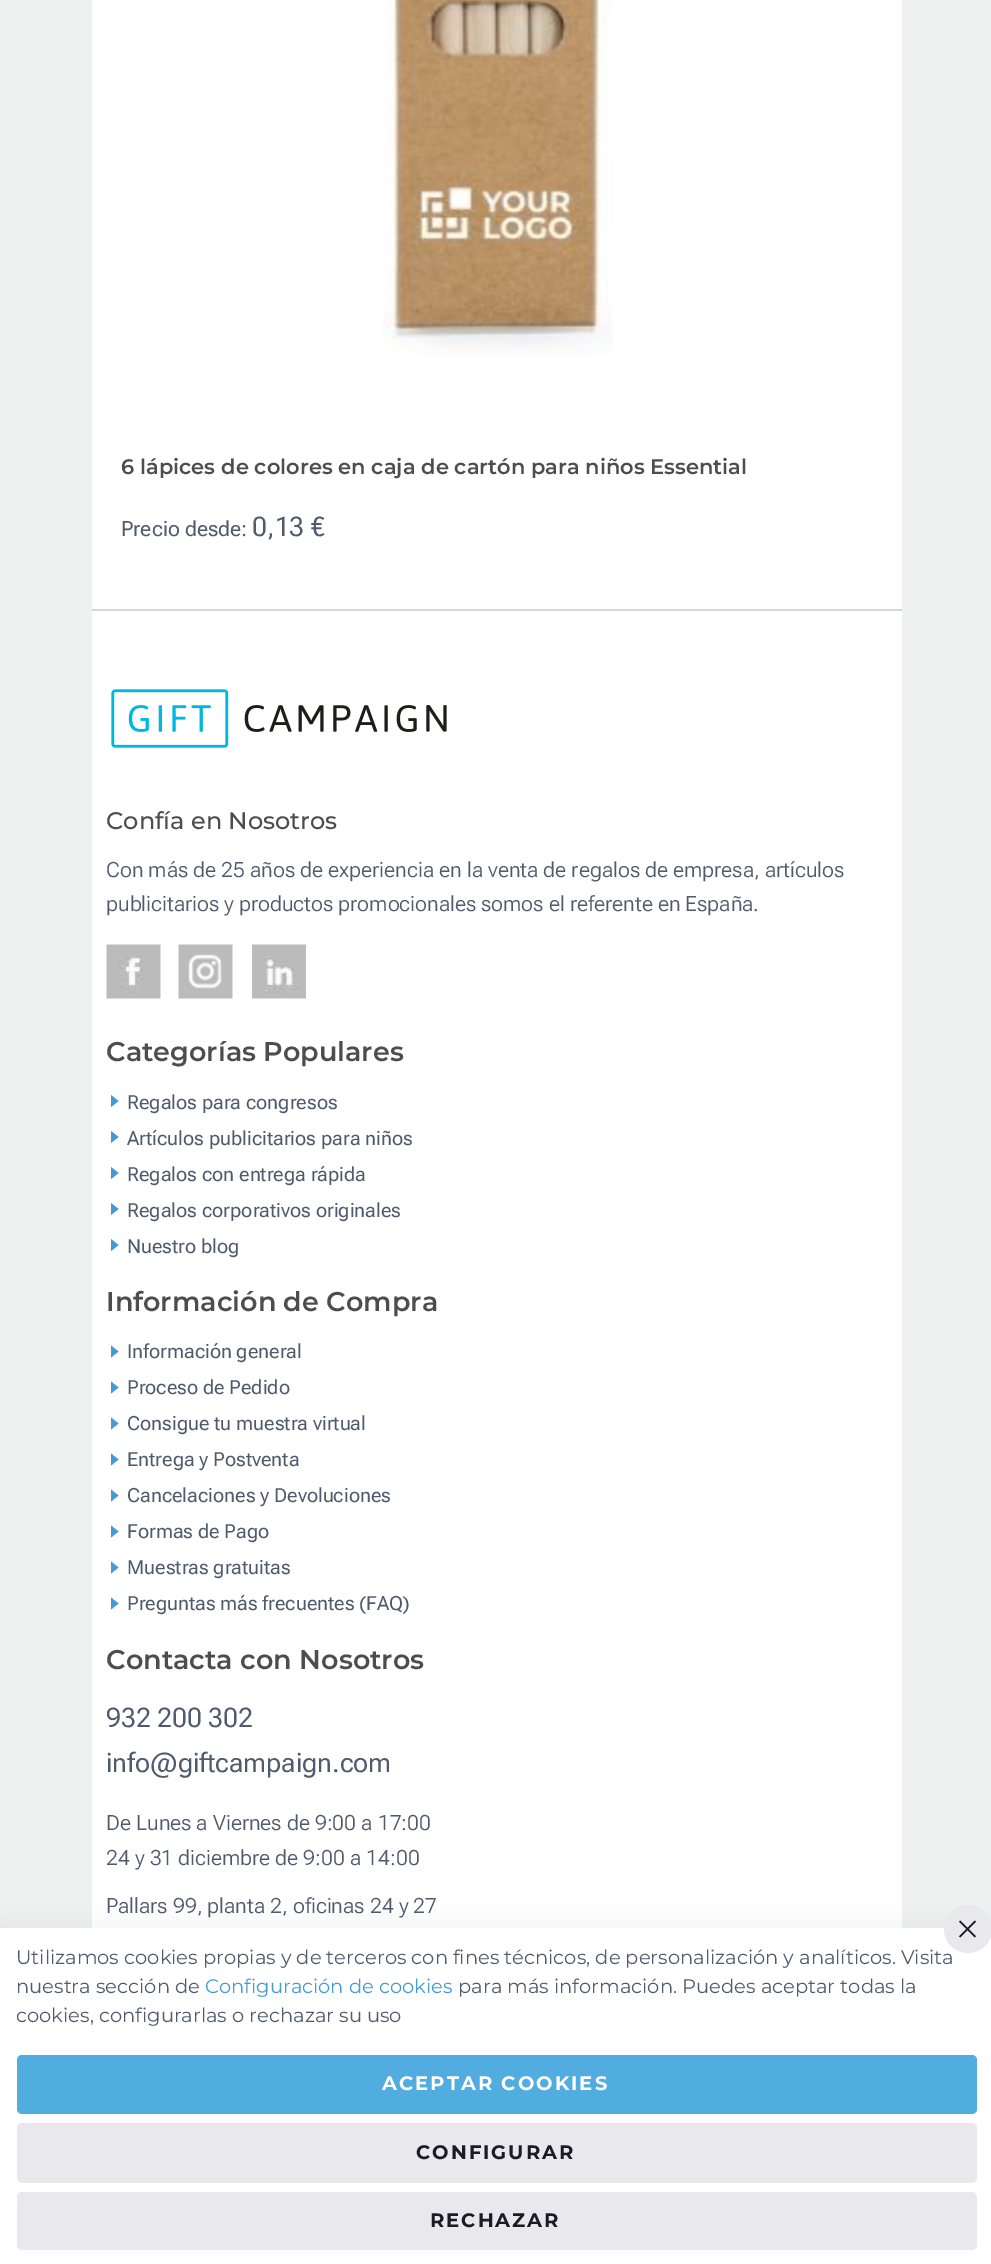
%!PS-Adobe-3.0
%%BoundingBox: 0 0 991 2264
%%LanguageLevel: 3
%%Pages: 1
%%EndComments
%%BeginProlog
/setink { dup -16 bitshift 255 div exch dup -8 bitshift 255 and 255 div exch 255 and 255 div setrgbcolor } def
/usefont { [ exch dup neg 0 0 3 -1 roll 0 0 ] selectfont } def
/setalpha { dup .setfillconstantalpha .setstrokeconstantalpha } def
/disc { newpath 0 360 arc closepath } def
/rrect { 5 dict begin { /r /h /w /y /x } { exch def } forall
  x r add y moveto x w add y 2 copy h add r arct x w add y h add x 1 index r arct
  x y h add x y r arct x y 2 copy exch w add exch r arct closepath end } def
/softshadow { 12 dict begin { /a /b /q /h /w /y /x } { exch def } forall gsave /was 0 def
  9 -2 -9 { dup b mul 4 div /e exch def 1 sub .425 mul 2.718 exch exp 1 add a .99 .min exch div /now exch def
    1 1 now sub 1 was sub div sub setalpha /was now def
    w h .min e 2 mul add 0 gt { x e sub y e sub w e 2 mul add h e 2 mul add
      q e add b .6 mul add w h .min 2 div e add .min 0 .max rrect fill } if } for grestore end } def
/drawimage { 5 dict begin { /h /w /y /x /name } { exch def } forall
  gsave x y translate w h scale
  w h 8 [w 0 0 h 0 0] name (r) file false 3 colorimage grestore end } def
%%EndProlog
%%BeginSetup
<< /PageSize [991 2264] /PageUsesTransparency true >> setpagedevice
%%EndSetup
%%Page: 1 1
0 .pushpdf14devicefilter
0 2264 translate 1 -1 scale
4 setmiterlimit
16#EEF1F0 setink
0 0 991 2264 rectfill
16#FFFFFF setink
92 0 810 1928 rectfill
(img1.raw) 383 0 230 356 drawimage
/Montserrat-SemiBold 21 usefont
16#4D4D4D setink
121 474 moveto (6 lápices de colores en caja de cartón para niños Essential) show
/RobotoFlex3-Regular 21 usefont
16#4F5A6D setink
121 536 moveto (Precio desde:) show
/RobotoFlex-Regular 27 usefont
252 536 moveto (0,13 €) show
16#D3D6DB setink
92 609 810 2 rectfill
(img2.raw) 111 689 336 59 drawimage
/Montserrat-Medium 24 usefont
16#4D4D4D setink
106 829 moveto (Confía en Nosotros) show
/RobotoFlex-Light 21 usefont
16#4F5A6D setink
106 877 moveto (Con más de 25 años de experiencia en la venta de regalos de empresa, artículos) show
106 911 moveto (publicitarios y productos promocionales somos el referente en España.) show
(img3.raw) 106 944 55 55 drawimage
(img4.raw) 178 944 55 55 drawimage
(img5.raw) 252 944 54 55 drawimage
/Montserrat-SemiBold 27 usefont
16#4D4D4D setink
106 1061 moveto (Categorías Populares) show
16#429AD6 setink
111 1107 moveto 111 1095 lineto 118.5 1101 lineto closepath fill
/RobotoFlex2-Regular 19.5 usefont
16#4F5A6D setink
127 1109 moveto (Regalos para congresos) show
16#429AD6 setink
111 1143 moveto 111 1131 lineto 118.5 1137 lineto closepath fill
16#4F5A6D setink
127 1145 moveto (Artículos publicitarios para niños) show
16#429AD6 setink
111 1179 moveto 111 1167 lineto 118.5 1173 lineto closepath fill
16#4F5A6D setink
127 1181 moveto (Regalos con entrega rápida) show
16#429AD6 setink
111 1215 moveto 111 1203 lineto 118.5 1209 lineto closepath fill
16#4F5A6D setink
127 1217 moveto (Regalos corporativos originales) show
16#429AD6 setink
111 1251 moveto 111 1239 lineto 118.5 1245 lineto closepath fill
16#4F5A6D setink
127 1253 moveto (Nuestro blog) show
/Montserrat-SemiBold 27 usefont
16#4D4D4D setink
106 1311 moveto (Información de Compra) show
16#429AD6 setink
111 1357.5 moveto 111 1345.5 lineto 118.5 1351.5 lineto closepath fill
/RobotoFlex2-Regular 19.5 usefont
16#4F5A6D setink
127 1358 moveto (Información general) show
16#429AD6 setink
111 1393.5 moveto 111 1381.5 lineto 118.5 1387.5 lineto closepath fill
16#4F5A6D setink
127 1394 moveto (Proceso de Pedido) show
16#429AD6 setink
111 1429.5 moveto 111 1417.5 lineto 118.5 1423.5 lineto closepath fill
16#4F5A6D setink
127 1430 moveto (Consigue tu muestra virtual) show
16#429AD6 setink
111 1465.5 moveto 111 1453.5 lineto 118.5 1459.5 lineto closepath fill
16#4F5A6D setink
127 1466 moveto (Entrega y Postventa) show
16#429AD6 setink
111 1501.5 moveto 111 1489.5 lineto 118.5 1495.5 lineto closepath fill
16#4F5A6D setink
127 1502 moveto (Cancelaciones y Devoluciones) show
16#429AD6 setink
111 1537.5 moveto 111 1525.5 lineto 118.5 1531.5 lineto closepath fill
16#4F5A6D setink
127 1538 moveto (Formas de Pago) show
16#429AD6 setink
111 1573.5 moveto 111 1561.5 lineto 118.5 1567.5 lineto closepath fill
16#4F5A6D setink
127 1574 moveto (Muestras gratuitas) show
16#429AD6 setink
111 1609.5 moveto 111 1597.5 lineto 118.5 1603.5 lineto closepath fill
16#4F5A6D setink
127 1610 moveto (Preguntas más frecuentes \(FAQ\)) show
/Montserrat-SemiBold 27 usefont
16#4D4D4D setink
106 1669 moveto (Contacta con Nosotros) show
/RobotoFlex-Regular 27 usefont
16#4F5A6D setink
106 1727 moveto (932 200 302) show
106 1772 moveto (info@giftcampaign.com) show
/RobotoFlex-Light 21 usefont
[
    [(De Lunes a Viernes de 9:00 a 17:00) 106 1830]
    [(24 y 31 diciembre de 9:00 a 14:00) 106 1865]
    [(Pallars 99, planta 2, oficinas 24 y 27) 106 1913]
] { aload pop moveto show } forall
16#000000 setink
0 1925 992 337 0 13.5 0.06 softshadow
16#FFFFFF setink
0 1928 991 336 rectfill
/Montserrat-Regular 19.5 usefont
16#4F5A6D setink
16 1964 moveto (Utilizamos cookies propias y de terceros con fines técnicos, de personalización y analíticos. Visita) show
16#E9E9ED setink
968 1929 24 disc fill
(img6.raw) 959 1920 17 18 drawimage
16#4F5A6D setink
16 1993 moveto (nuestra sección de) show
16#429AD6 setink
205 1993 moveto (Configuración de cookies) show
16#4F5A6D setink
458 1993 moveto (para más información. Puedes aceptar todas la) show
gsave
17 1943 960 88 rectclip
16 2022 moveto (cookies, configurarlas o rechazar su uso) show
grestore
16#51ACE0 setink
17 2055 960 59 5 rrect fill
/Montserrat-Bold 19.5 usefont
16#FFFFFF setink
382 2090 moveto 2 0 (ACEPTAR COOKIES) ashow
16#E9E9ED setink
17 2123 960 60 5 rrect fill
16#1C1A27 setink
416 2159 moveto 2 0 (CONFIGURAR) ashow
16#E9E9ED setink
17 2192 960 58 5 rrect fill
16#1C1A27 setink
430 2227 moveto 2 0 (RECHAZAR) ashow
.poppdf14devicefilter showpage
%%EOF
